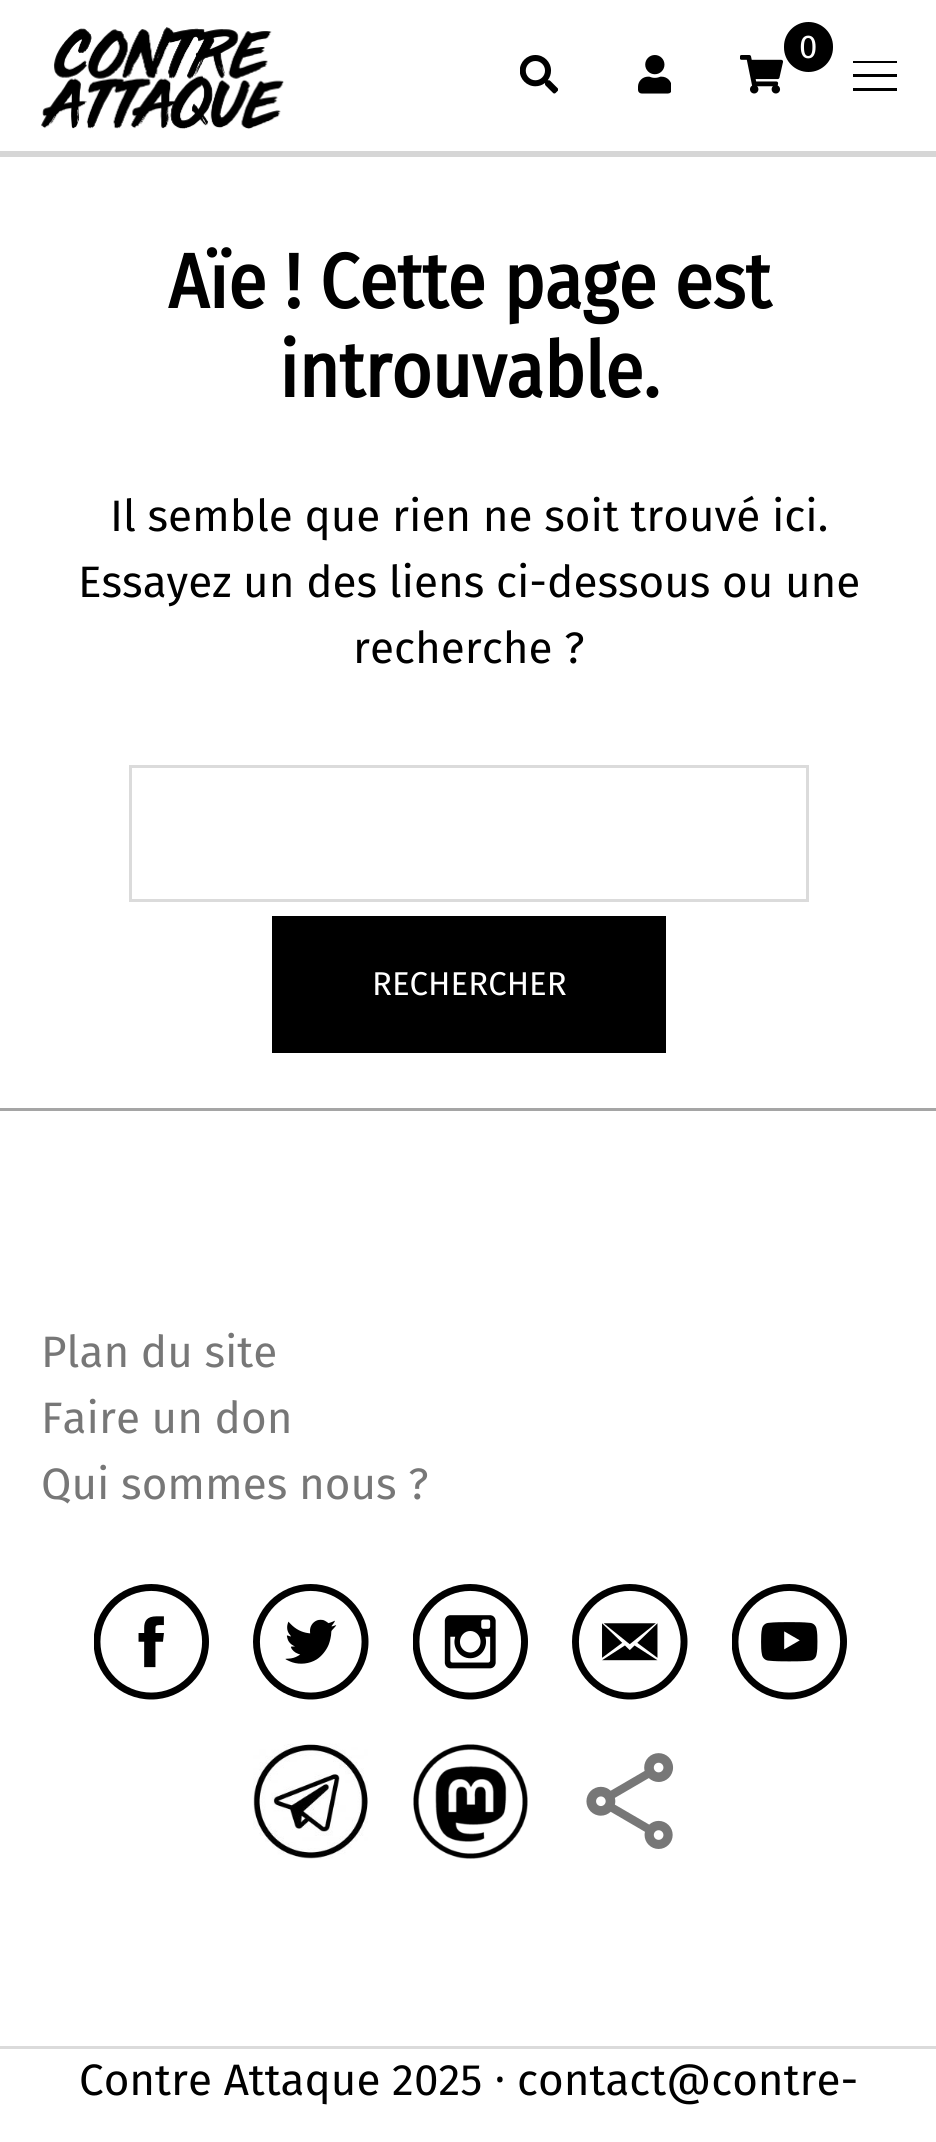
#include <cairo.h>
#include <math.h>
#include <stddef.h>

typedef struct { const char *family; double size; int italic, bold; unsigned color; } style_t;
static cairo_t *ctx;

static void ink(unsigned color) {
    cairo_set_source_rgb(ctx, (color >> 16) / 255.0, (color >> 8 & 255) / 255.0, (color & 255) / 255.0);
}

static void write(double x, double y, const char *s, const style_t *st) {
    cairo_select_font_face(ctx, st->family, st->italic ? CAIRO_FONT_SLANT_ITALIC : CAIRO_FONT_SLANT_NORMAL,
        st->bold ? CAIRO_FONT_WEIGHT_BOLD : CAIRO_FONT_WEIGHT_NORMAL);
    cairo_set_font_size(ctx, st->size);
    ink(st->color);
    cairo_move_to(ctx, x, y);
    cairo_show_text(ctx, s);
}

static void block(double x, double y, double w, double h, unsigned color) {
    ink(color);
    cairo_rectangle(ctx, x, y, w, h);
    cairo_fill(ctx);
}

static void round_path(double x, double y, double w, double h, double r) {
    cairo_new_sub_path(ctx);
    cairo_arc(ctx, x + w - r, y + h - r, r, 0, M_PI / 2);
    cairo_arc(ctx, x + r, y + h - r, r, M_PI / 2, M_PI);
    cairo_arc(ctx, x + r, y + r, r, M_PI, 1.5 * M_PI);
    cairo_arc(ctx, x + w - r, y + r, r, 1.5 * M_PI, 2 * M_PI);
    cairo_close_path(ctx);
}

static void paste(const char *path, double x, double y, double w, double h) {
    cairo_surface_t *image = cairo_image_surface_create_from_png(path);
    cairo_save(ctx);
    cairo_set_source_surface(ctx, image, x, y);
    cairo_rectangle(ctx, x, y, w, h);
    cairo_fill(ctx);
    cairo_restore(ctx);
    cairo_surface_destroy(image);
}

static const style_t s1 = {"Fira Sans", 33, 0, 0, 0xffffff};
static const style_t s2 = {"Fira Sans Condensed", 77, 0, 1, 0x000000};
static const style_t s3 = {"Fira Sans", 44, 0, 0, 0x000000};
static const style_t s4 = {"Fira Sans", 44, 0, 0, 0x777777};
static const style_t s5 = {"Noto Sans", 44, 0, 0, 0x000000};

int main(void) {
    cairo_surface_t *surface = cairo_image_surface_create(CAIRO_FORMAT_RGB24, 936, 2142);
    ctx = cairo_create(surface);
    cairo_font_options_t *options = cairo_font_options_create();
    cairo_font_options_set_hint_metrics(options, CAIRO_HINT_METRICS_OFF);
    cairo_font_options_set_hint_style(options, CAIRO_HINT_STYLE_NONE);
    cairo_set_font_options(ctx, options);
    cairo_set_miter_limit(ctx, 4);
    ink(0xffffff);
    cairo_paint(ctx);
    block(0, 151, 936, 6, 0xd6d6d6);
    paste("pic1.png", 41, 27, 243, 102);
    ink(0x000000);
    round_path(784, 22, 49, 50, 24.5);
    cairo_fill(ctx);
    write(799, 58, "0", &s1);
    paste("pic2.png", 740, 55, 43, 39);
    paste("pic3.png", 638, 55, 33, 39);
    paste("pic4.png", 520, 55, 38, 39);
    block(853, 61, 44, 2, 0x000000);
    block(853, 74, 44, 3, 0x000000);
    block(853, 88, 44, 3, 0x000000);
    write(168, 308, "Aïe ! Cette page est", &s2);
    write(279, 397, "introuvable.", &s2);
    write(110, 531, "Il semble que rien ne soit trouvé ici.", &s3);
    write(78, 597, "Essayez un des liens ci-dessous ou une", &s3);
    write(353, 663, "recherche ?", &s3);
    cairo_rectangle(ctx, 130.5, 766.5, 677, 134);
    ink(0xdbdbdb);
    cairo_set_line_width(ctx, 3);
    cairo_stroke(ctx);
    block(272, 916, 394, 137, 0x000000);
    write(372, 995, "RECHERCHER", &s1);
    block(0, 1108, 936, 3, 0xa5a5a5);
    write(41, 1367, "Plan du site", &s4);
    write(41, 1433, "Faire un don", &s4);
    write(41, 1499, "Qui sommes nous ?", &s4);
    paste("pic5.png", 94, 1584, 115, 116);
    paste("pic6.png", 253, 1584, 116, 116);
    paste("pic7.png", 413, 1584, 115, 116);
    paste("pic8.png", 572, 1584, 116, 116);
    paste("pic9.png", 732, 1584, 115, 116);
    paste("pic10.png", 253, 1743, 115, 116);
    paste("pic11.png", 413, 1744, 115, 115);
    paste("pic12.png", 586, 1753, 88, 96);
    block(0, 2046, 936, 3, 0xdbdbdb);
    write(79, 2095, "Contre Attaque 2025", &s3);
    write(494, 2095, "⸱", &s5);
    write(517, 2095, "contact@contre-", &s3);
    cairo_surface_write_to_png(surface, "screenshot.png");
    cairo_font_options_destroy(options);
    cairo_destroy(ctx);
    cairo_surface_destroy(surface);
    return 0;
}
